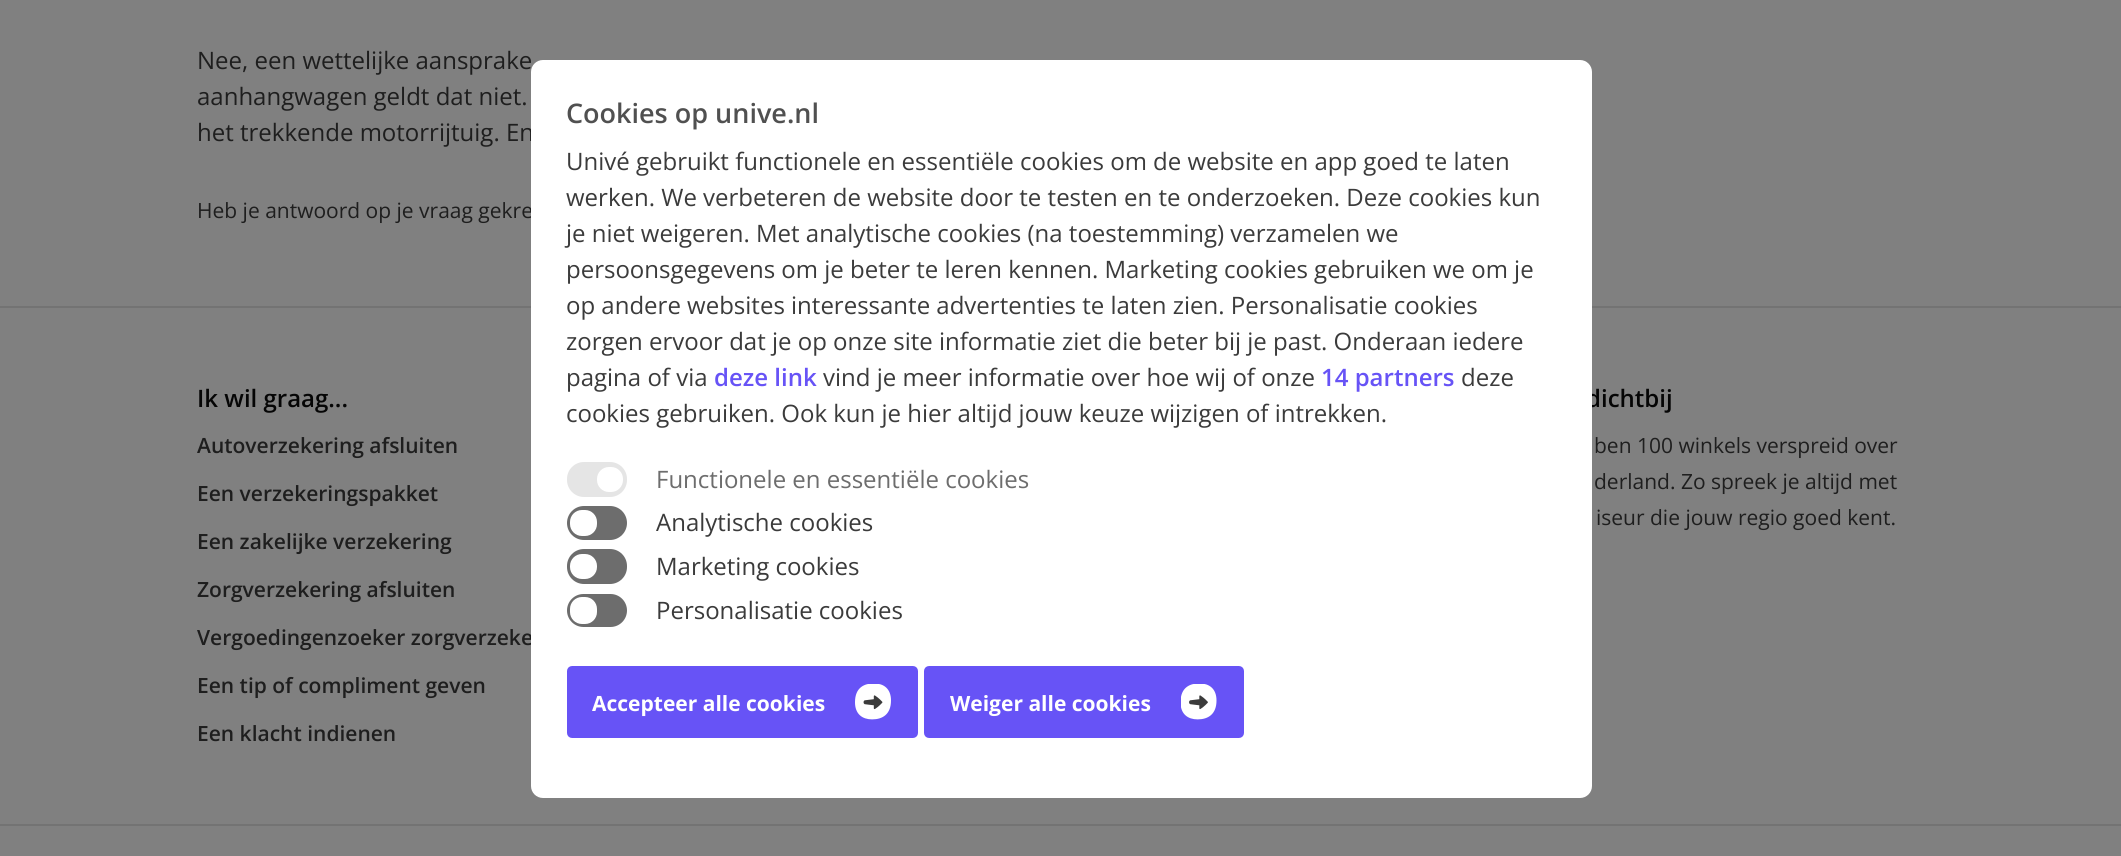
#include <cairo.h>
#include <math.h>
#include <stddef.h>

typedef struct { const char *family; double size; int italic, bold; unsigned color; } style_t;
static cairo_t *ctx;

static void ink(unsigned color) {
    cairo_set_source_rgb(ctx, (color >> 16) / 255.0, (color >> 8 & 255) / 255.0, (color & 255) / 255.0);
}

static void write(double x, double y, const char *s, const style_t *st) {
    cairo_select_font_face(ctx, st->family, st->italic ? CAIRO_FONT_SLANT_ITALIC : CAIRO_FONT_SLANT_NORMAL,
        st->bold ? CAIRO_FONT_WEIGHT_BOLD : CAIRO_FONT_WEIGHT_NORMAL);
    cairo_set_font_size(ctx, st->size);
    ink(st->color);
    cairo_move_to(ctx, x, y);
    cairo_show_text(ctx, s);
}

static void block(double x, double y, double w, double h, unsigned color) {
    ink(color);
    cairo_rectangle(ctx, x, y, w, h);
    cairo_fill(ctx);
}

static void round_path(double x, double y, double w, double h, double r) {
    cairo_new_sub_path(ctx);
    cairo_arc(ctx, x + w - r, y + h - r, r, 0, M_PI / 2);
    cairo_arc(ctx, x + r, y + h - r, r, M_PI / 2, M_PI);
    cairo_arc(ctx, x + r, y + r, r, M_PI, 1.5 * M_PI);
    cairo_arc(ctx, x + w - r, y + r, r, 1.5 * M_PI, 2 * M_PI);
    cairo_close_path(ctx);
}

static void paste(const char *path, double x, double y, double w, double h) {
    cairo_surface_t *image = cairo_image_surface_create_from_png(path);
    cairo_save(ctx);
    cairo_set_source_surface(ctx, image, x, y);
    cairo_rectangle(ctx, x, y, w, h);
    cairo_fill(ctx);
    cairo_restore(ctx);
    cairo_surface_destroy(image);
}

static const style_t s1 = {"Open Sans", 24, 0, 0, 0x1e1e1e};
static const style_t s2 = {"Open Sans", 21, 0, 0, 0x1e1e1e};
static const style_t s3 = {"Open Sans SemiBold", 24, 0, 0, 0x050505};
static const style_t s4 = {"Open Sans SemiBold", 21, 0, 0, 0x1e1e1e};
static const style_t s5 = {"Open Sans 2 SemiBold", 27, 0, 0, 0x505050};
static const style_t s6 = {"Open Sans 2", 24, 0, 0, 0x3b3b3b};
static const style_t s7 = {"Open Sans 2 SemiBold", 24, 0, 0, 0x6753f6};
static const style_t s8 = {"Open Sans 2", 24, 0, 0, 0x6d6d6d};
static const style_t s9 = {"Open Sans", 21, 0, 1, 0xffffff};

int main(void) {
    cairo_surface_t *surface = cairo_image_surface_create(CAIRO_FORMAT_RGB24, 2121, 856);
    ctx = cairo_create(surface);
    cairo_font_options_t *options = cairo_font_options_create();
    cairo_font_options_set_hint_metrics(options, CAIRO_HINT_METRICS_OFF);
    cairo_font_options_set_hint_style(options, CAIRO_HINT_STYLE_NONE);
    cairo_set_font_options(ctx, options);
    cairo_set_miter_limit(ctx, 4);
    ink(0x808080);
    cairo_paint(ctx);
    write(197, 69, "Nee, een wettelijke aansprake", &s1);
    write(197, 105, "aanhangwagen geldt dat niet.", &s1);
    write(197, 141, "het trekkende motorrijtuig. En", &s1);
    write(197, 218, "Heb je antwoord op je vraag gekre", &s2);
    block(0, 306, 2121, 2, 0x737373);
    write(197, 407, "Ik wil graag...", &s3);
    write(197, 453, "Autoverzekering afsluiten", &s4);
    write(197, 501, "Een verzekeringspakket", &s4);
    write(197, 549, "Een zakelijke verzekering", &s4);
    write(197, 597, "Zorgverzekering afsluiten", &s4);
    write(197, 645, "Vergoedingenzoeker zorgverzeke", &s4);
    write(197, 693, "Een tip of compliment geven", &s4);
    write(197, 741, "Een klacht indienen", &s4);
    write(1586, 407, "dichtbij", &s3);
    write(1594, 453, "ben 100 winkels verspreid over", &s2);
    write(1594, 489, "derland. Zo spreek je altijd met", &s2);
    write(1596, 525, "iseur die jouw regio goed kent.", &s2);
    block(0, 824, 2121, 2, 0x737373);
    ink(0xffffff);
    round_path(531, 60, 1061, 738, 12);
    cairo_fill(ctx);
    write(566, 123, "Cookies op unive.nl", &s5);
    write(566, 170, "Univé gebruikt functionele en essentiële cookies om de website en app goed te laten", &s6);
    write(566, 206, "werken. We verbeteren de website door te testen en te onderzoeken. Deze cookies kun", &s6);
    write(566, 242, "je niet weigeren. Met analytische cookies (na toestemming) verzamelen we", &s6);
    write(566, 278, "persoonsgegevens om je beter te leren kennen. Marketing cookies gebruiken we om je", &s6);
    write(566, 314, "op andere websites interessante advertenties te laten zien. Personalisatie cookies", &s6);
    write(566, 350, "zorgen ervoor dat je op onze site informatie ziet die beter bij je past. Onderaan iedere", &s6);
    write(566, 386, "pagina of via", &s6);
    write(714, 386, "deze link", &s7);
    write(823, 386, "vind je meer informatie over hoe wij of onze", &s6);
    write(1321, 386, "14 partners", &s7);
    write(1461, 386, "deze", &s6);
    write(566, 422, "cookies gebruiken. Ook kun je hier altijd jouw keuze wijzigen of intrekken.", &s6);
    ink(0xe5e5e5);
    round_path(567, 462, 60, 35, 17);
    cairo_fill(ctx);
    ink(0xffffff);
    round_path(597, 467, 26, 25, 12);
    cairo_fill(ctx);
    write(656, 488, "Functionele en essentiële cookies", &s8);
    round_path(567, 506, 60, 34, 17);
    cairo_fill(ctx);
    ink(0xffffff);
    round_path(570, 510, 27, 26, 12);
    cairo_fill(ctx);
    write(656, 531, "Analytische cookies", &s6);
    ink(0x6d6d6d);
    round_path(567, 549, 60, 35, 17);
    cairo_fill(ctx);
    ink(0xffffff);
    round_path(570, 554, 27, 25, 12);
    cairo_fill(ctx);
    write(656, 575, "Marketing cookies", &s6);
    ink(0x6d6d6d);
    round_path(567, 594, 60, 33, 16.5);
    cairo_fill(ctx);
    ink(0xffffff);
    round_path(570, 597, 27, 27, 12);
    cairo_fill(ctx);
    write(656, 619, "Personalisatie cookies", &s6);
    ink(0x6753f6);
    round_path(568.5, 667.5, 348, 69, 3.5);
    cairo_fill_preserve(ctx);
    cairo_set_line_width(ctx, 3);
    cairo_stroke(ctx);
    write(592, 711, "Accepteer alle cookies", &s9);
    paste("pic1.png", 855, 684, 36, 36);
    ink(0x6753f6);
    round_path(925.5, 667.5, 317, 69, 3.5);
    cairo_fill_preserve(ctx);
    cairo_stroke(ctx);
    write(950, 711, "Weiger alle cookies", &s9);
    paste("pic2.png", 1181, 684, 36, 36);
    cairo_surface_write_to_png(surface, "screenshot.png");
    cairo_font_options_destroy(options);
    cairo_destroy(ctx);
    cairo_surface_destroy(surface);
    return 0;
}
